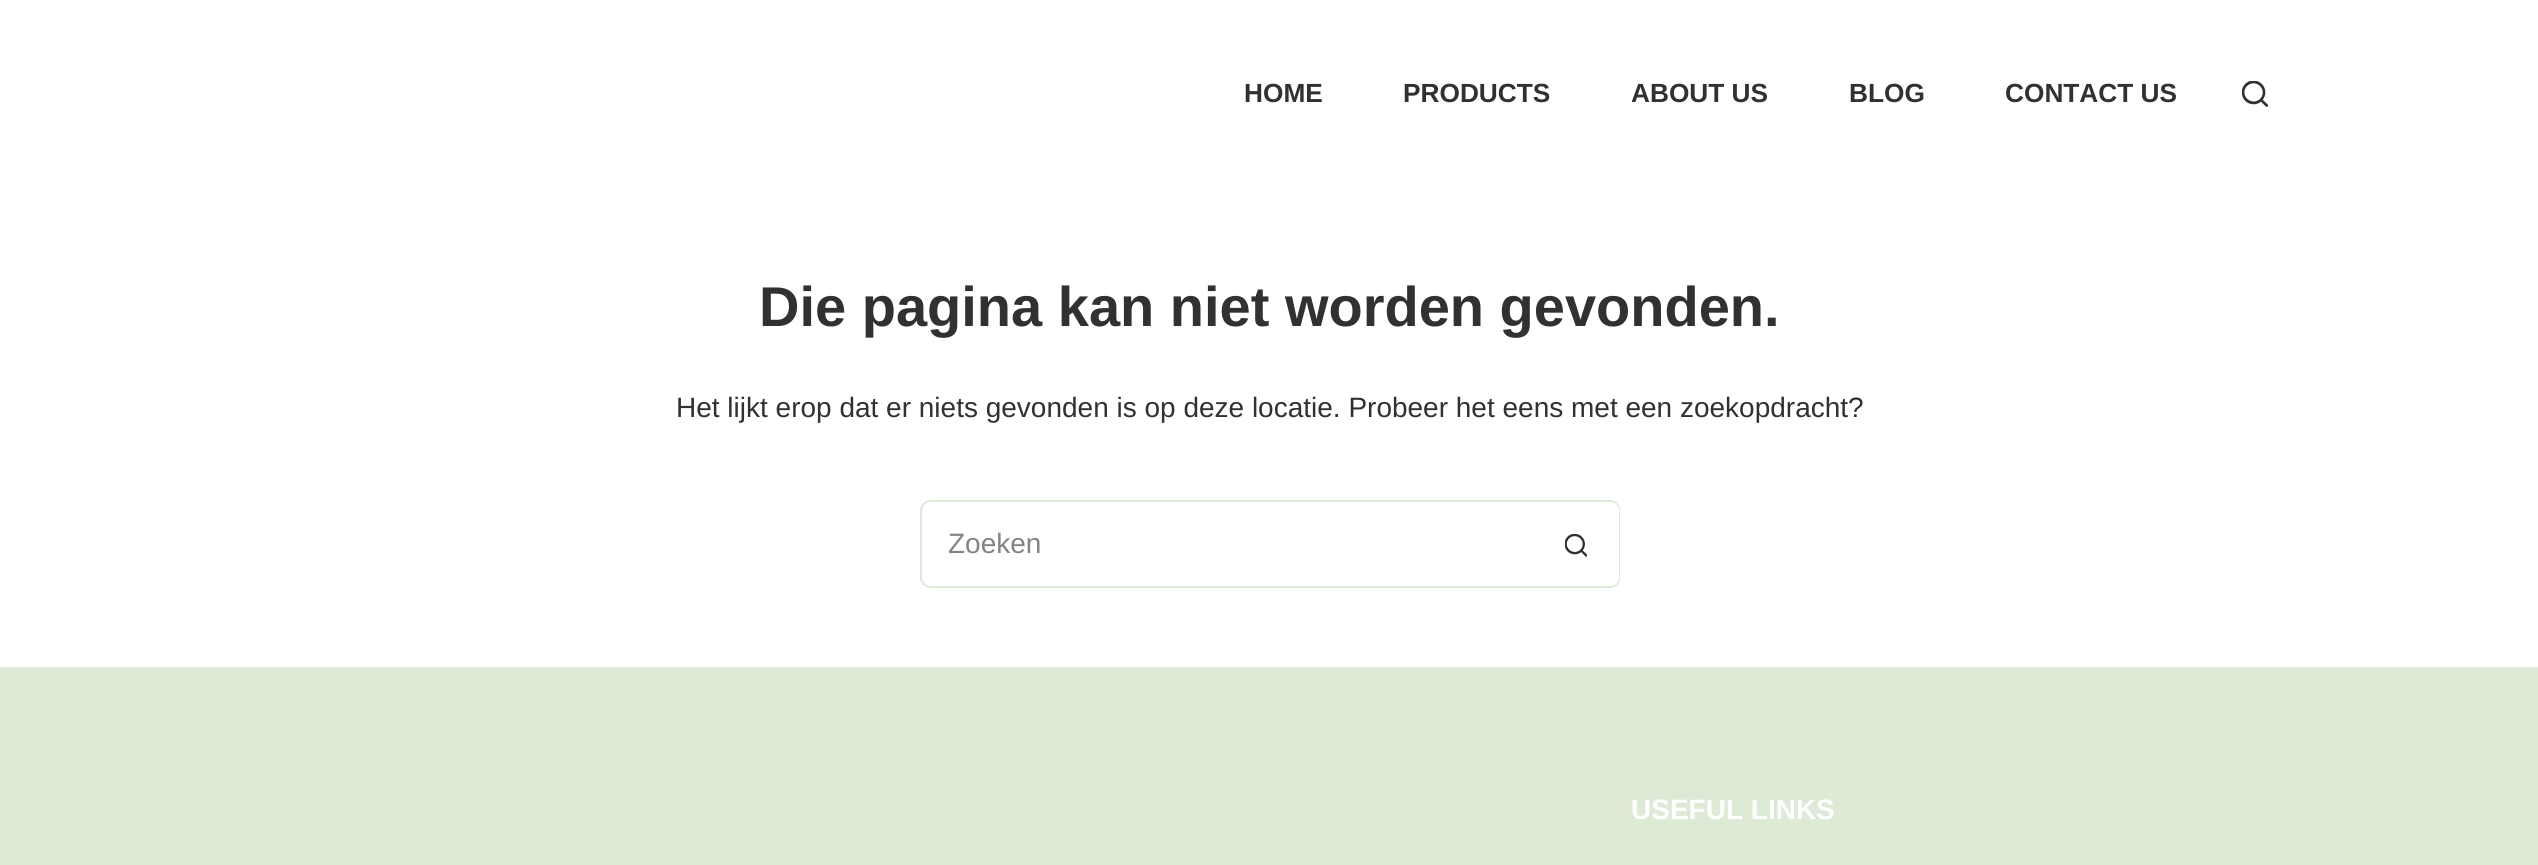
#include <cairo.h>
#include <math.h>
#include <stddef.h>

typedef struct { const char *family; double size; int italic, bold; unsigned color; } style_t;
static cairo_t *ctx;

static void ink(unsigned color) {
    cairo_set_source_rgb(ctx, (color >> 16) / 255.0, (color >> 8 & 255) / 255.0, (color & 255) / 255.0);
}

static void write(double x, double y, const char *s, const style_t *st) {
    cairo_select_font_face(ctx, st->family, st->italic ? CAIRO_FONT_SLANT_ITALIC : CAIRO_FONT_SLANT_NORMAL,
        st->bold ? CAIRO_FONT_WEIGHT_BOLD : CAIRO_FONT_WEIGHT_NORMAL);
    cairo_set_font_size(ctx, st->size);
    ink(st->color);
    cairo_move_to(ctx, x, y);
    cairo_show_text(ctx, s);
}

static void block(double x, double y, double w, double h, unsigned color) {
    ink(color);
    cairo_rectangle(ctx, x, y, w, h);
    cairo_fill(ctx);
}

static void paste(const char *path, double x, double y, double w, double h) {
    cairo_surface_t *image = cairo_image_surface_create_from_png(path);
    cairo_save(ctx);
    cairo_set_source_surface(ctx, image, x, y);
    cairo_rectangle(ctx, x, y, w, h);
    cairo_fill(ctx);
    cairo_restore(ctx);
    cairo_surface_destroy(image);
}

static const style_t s1 = {"Liberation Sans", 26.25, 0, 1, 0x323131};
static const style_t s2 = {"Liberation Sans", 56, 0, 1, 0x323131};
static const style_t s3 = {"Liberation Sans", 28, 0, 0, 0x323131};
static const style_t s4 = {"Liberation Sans", 28, 0, 0, 0x848383};
static const style_t s5 = {"Liberation Sans", 28, 0, 1, 0xffffff};

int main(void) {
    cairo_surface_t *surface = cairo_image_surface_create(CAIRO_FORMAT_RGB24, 2538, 865);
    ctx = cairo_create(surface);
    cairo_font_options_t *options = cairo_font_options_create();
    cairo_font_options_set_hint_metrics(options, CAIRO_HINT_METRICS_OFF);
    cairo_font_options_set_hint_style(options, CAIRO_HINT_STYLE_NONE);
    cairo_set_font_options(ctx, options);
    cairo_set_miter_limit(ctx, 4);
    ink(0xffffff);
    cairo_paint(ctx);
    write(1244, 102, "HOME", &s1);
    write(1403, 102, "PRODUCTS", &s1);
    write(1631, 102, "ABOUT US", &s1);
    write(1849, 102, "BLOG", &s1);
    write(2005, 102, "CONTACT US", &s1);
    paste("pic1.png", 2242, 81, 26, 26);
    write(759, 326, "Die pagina kan niet worden gevonden.", &s2);
    write(676, 417, "Het lijkt erop dat er niets gevonden is op deze locatie. Probeer het eens met een zoekopdracht?", &s3);
    ink(0xddead6);
    cairo_set_fill_rule(ctx, CAIRO_FILL_RULE_EVEN_ODD);
    cairo_new_path(ctx);
    cairo_move_to(ctx, 931, 500);
    cairo_line_to(ctx, 1533, 500);
    cairo_line_to(ctx, 1533, 588);
    cairo_line_to(ctx, 931, 588);
    cairo_curve_to(ctx, 925, 588, 920, 583, 920, 578);
    cairo_line_to(ctx, 920, 511);
    cairo_curve_to(ctx, 920, 505, 925, 500, 931, 500);
    cairo_close_path(ctx);
    cairo_move_to(ctx, 931, 502);
    cairo_line_to(ctx, 1533, 502);
    cairo_line_to(ctx, 1533, 586);
    cairo_line_to(ctx, 931, 586);
    cairo_curve_to(ctx, 926, 586, 922, 582, 922, 578);
    cairo_line_to(ctx, 922, 511);
    cairo_curve_to(ctx, 922, 506, 926, 502, 931, 502);
    cairo_close_path(ctx);
    cairo_fill(ctx);
    cairo_save(ctx);
    cairo_set_fill_rule(ctx, CAIRO_FILL_RULE_WINDING);
    cairo_rectangle(ctx, 949, 529, 551, 31);
    cairo_clip(ctx);
    write(948, 553, "Zoeken", &s4);
    cairo_restore(ctx);
    cairo_new_path(ctx);
    cairo_move_to(ctx, 1533, 500);
    cairo_line_to(ctx, 1610, 500);
    cairo_curve_to(ctx, 1616, 500, 1620, 505, 1620, 511);
    cairo_line_to(ctx, 1620, 578);
    cairo_curve_to(ctx, 1620, 583, 1616, 588, 1610, 588);
    cairo_line_to(ctx, 1533, 588);
    cairo_close_path(ctx);
    cairo_move_to(ctx, 1533, 502);
    cairo_line_to(ctx, 1610, 502);
    cairo_curve_to(ctx, 1615, 502, 1619, 506, 1619, 511);
    cairo_line_to(ctx, 1619, 578);
    cairo_curve_to(ctx, 1619, 582, 1615, 586, 1610, 586);
    cairo_line_to(ctx, 1533, 586);
    cairo_close_path(ctx);
    cairo_fill(ctx);
    paste("pic2.png", 1565, 534, 22, 23);
    block(0, 667, 2538, 198, 0xddead6);
    write(1631, 819, "USEFUL LINKS", &s5);
    cairo_surface_write_to_png(surface, "screenshot.png");
    cairo_font_options_destroy(options);
    cairo_destroy(ctx);
    cairo_surface_destroy(surface);
    return 0;
}
